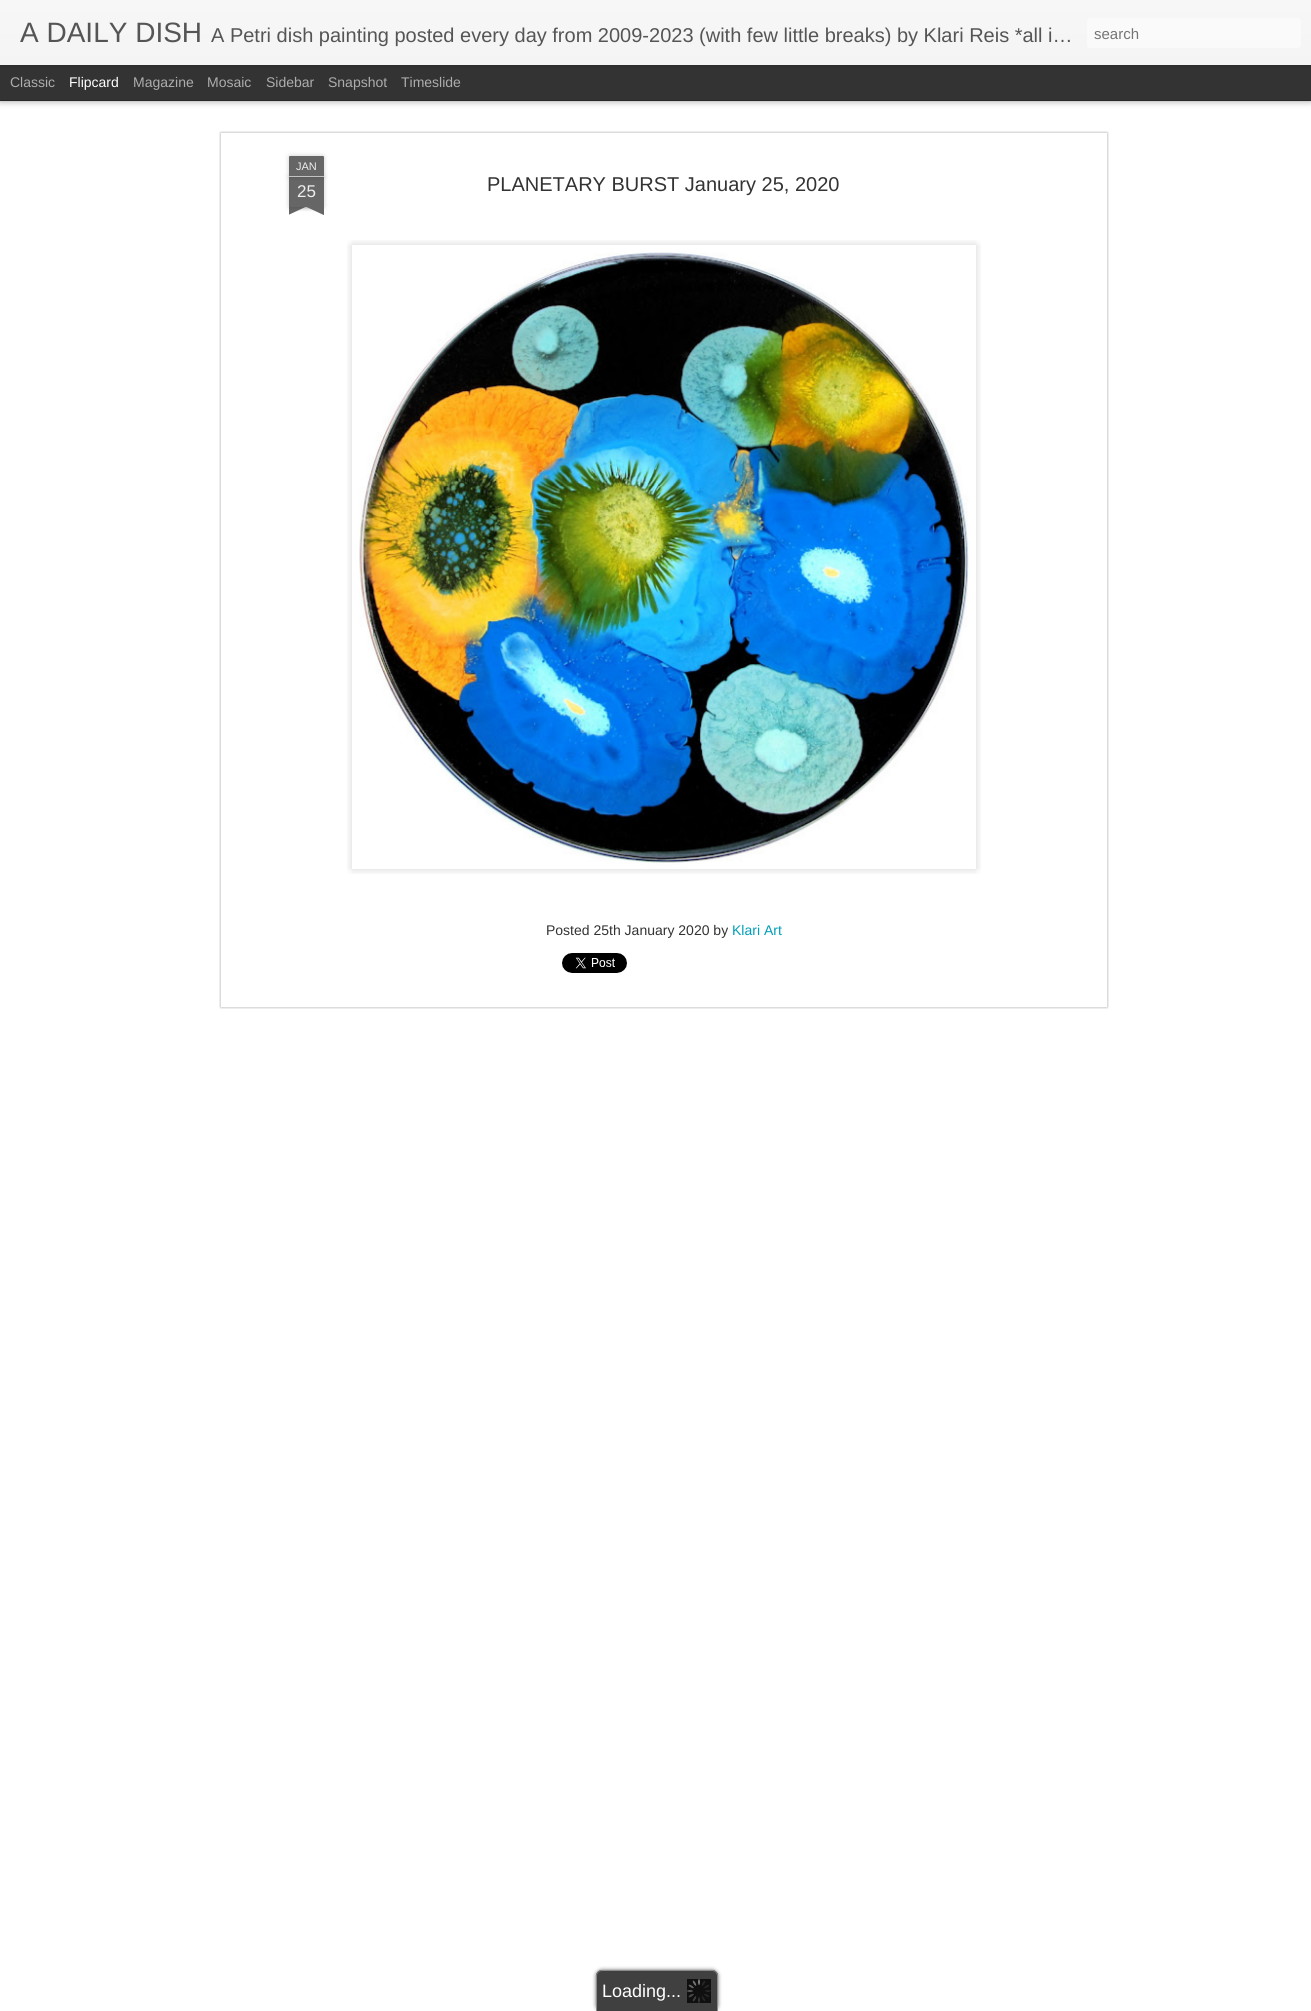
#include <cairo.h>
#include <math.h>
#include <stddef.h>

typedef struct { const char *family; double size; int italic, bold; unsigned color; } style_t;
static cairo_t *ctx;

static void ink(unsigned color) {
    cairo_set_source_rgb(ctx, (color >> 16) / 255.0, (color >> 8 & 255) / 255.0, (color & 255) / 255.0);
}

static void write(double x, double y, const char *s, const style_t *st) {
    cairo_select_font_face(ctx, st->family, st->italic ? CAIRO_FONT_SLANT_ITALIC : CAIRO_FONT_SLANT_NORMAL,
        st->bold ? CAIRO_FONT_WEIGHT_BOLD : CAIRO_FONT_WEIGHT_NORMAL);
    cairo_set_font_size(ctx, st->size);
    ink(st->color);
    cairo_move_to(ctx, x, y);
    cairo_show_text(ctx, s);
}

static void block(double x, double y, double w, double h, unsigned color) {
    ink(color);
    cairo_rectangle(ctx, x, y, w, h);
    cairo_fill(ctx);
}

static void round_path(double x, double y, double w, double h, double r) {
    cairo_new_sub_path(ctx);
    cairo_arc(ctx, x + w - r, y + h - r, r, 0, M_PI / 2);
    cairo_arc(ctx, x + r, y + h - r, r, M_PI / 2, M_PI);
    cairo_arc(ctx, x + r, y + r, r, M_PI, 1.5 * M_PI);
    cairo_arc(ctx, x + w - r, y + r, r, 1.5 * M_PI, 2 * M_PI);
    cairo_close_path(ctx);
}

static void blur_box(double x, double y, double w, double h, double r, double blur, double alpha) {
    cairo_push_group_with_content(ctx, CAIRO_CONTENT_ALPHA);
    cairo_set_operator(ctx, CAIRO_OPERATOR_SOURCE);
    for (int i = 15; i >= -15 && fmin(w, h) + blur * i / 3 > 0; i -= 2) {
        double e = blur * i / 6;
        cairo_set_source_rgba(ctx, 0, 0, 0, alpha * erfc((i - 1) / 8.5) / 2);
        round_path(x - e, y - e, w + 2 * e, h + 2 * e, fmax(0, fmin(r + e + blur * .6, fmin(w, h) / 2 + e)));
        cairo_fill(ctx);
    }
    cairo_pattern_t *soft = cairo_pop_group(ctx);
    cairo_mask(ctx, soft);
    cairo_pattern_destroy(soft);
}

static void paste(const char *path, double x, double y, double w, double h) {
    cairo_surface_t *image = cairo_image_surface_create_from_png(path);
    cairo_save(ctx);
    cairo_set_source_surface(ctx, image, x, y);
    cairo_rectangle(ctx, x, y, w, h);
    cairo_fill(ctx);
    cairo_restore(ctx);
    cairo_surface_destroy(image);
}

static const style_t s1 = {"Liberation Sans", 28, 0, 0, 0x555555};
static const style_t s2 = {"Liberation Sans", 20, 0, 0, 0x555555};
static const style_t s3 = {"Liberation Sans", 15, 0, 0, 0x757575};
static const style_t s4 = {"Liberation Sans", 14, 0, 0, 0xadadad};
static const style_t s5 = {"Liberation Sans", 14, 0, 0, 0xffffff};
static const style_t s6 = {"Liberation Sans", 11, 0, 0, 0xeeeeee};
static const style_t s7 = {"Liberation Sans", 17, 0, 0, 0xeeeeee};
static const style_t s8 = {"Liberation Sans", 20, 0, 0, 0x333333};
static const style_t s9 = {"Liberation Sans", 14, 0, 0, 0x333333};
static const style_t s10 = {"Liberation Sans", 14, 0, 0, 0x009eb8};
static const style_t s11 = {"Liberation Sans", 18, 0, 0, 0xffffff};

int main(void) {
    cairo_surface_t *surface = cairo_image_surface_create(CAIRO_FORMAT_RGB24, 1311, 2011);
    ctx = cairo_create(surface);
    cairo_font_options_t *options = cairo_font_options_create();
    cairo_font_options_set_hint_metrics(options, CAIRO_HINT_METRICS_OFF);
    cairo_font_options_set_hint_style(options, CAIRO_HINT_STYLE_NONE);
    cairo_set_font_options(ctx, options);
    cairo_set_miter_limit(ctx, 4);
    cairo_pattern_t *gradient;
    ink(0x333333);
    cairo_paint(ctx);
    block(0, 101, 1311, 1910, 0xffffff);
    ink(0x000000);
    blur_box(0, 65, 1311, 35, 0, 4, 0.5);
    block(0, 65, 1311, 35, 0x333333);
    ink(0x000000);
    blur_box(0, 0, 1311, 65, 0, 2.5, 0.3);
    gradient = cairo_pattern_create_linear(0, 0, 0, 65);
    cairo_pattern_add_color_stop_rgba(gradient, 0, 0.969, 0.969, 0.969, 1);
    cairo_pattern_add_color_stop_rgba(gradient, 1, 0.957, 0.957, 0.957, 1);
    cairo_set_source(ctx, gradient);
    cairo_pattern_destroy(gradient);
    cairo_rectangle(ctx, 0, 0, 1311, 65);
    cairo_fill(ctx);
    write(20, 42, "A DAILY DISH", &s1);
    write(211, 42, "A Petri dish painting posted every day from 2009-2023 (with few little breaks) by Klari Reis *all i…", &s2);
    ink(0xfafafa);
    round_path(1087, 18, 214, 30, 3);
    cairo_fill(ctx);
    write(1094, 39, "search", &s3);
    write(10, 87, "Classic", &s4);
    write(69, 87, "Flipcard", &s5);
    write(133, 87, "Magazine", &s4);
    write(207, 87, "Mosaic", &s4);
    write(266, 87, "Sidebar", &s4);
    write(328, 87, "Snapshot", &s4);
    write(401, 87, "Timeslide", &s4);
    paste("pic1.png", 219, 131, 890, 878);
    ink(0x000000);
    blur_box(289, 177, 35, 30, 0, 2.5, 0.2);
    block(289, 177, 35, 30, 0x666666);
    ink(0x000000);
    blur_box(289, 156, 35, 21, 1, 2.5, 0.2);
    ink(0x666666);
    cairo_new_path(ctx);
    cairo_move_to(ctx, 290, 156);
    cairo_line_to(ctx, 323, 156);
    cairo_curve_to(ctx, 323.5, 156, 324, 156.5, 324, 157);
    cairo_line_to(ctx, 324, 177);
    cairo_line_to(ctx, 289, 177);
    cairo_line_to(ctx, 289, 157);
    cairo_curve_to(ctx, 289, 156.5, 289.5, 156, 290, 156);
    cairo_close_path(ctx);
    cairo_fill(ctx);
    block(289, 176, 35, 1, 0xc2c2c2);
    write(296, 170, "JAN", &s6);
    write(297, 197, "25", &s7);
    cairo_save(ctx);
    cairo_rectangle(ctx, 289, 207, 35, 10);
    cairo_clip(ctx);
    ink(0x000000);
    blur_box(280, 197, 50, 10, 0, 2.5, 0.2);
    cairo_restore(ctx);
    cairo_save(ctx);
    cairo_rectangle(ctx, 289, 207, 35, 10);
    cairo_clip(ctx);
    ink(0x666666);
    cairo_new_path(ctx);
    cairo_move_to(ctx, 280, 208);
    cairo_line_to(ctx, 325, 187);
    cairo_line_to(ctx, 329, 196);
    cairo_line_to(ctx, 284, 217);
    cairo_close_path(ctx);
    cairo_fill(ctx);
    cairo_restore(ctx);
    cairo_save(ctx);
    cairo_rectangle(ctx, 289, 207, 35, 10);
    cairo_clip(ctx);
    ink(0x000000);
    blur_box(283, 197, 50, 10, 0, 2.5, 0.2);
    cairo_restore(ctx);
    cairo_save(ctx);
    cairo_rectangle(ctx, 289, 207, 35, 10);
    cairo_clip(ctx);
    ink(0x666666);
    cairo_new_path(ctx);
    cairo_move_to(ctx, 287, 187);
    cairo_line_to(ctx, 332, 208);
    cairo_line_to(ctx, 328, 217);
    cairo_line_to(ctx, 283, 196);
    cairo_close_path(ctx);
    cairo_fill(ctx);
    cairo_restore(ctx);
    write(487, 191, "PLANETARY BURST January 25, 2020", &s8);
    paste("pic2.png", 347, 240, 634, 634);
    paste("pic3.png", 359, 252, 609, 611);
    write(546, 935, "Posted 25th January 2020 by", &s9);
    write(732, 935, "Klari Art", &s10);
    paste("pic4.png", 562, 953, 65, 20);
    ink(0x666666);
    blur_box(596, 1970, 122, 41, 6, 2, 1);
    ink(0x404040);
    cairo_new_path(ctx);
    cairo_move_to(ctx, 602, 1970);
    cairo_line_to(ctx, 712, 1970);
    cairo_curve_to(ctx, 715.5, 1970, 718, 1972.5, 718, 1976);
    cairo_line_to(ctx, 718, 2011);
    cairo_line_to(ctx, 596, 2011);
    cairo_line_to(ctx, 596, 1976);
    cairo_curve_to(ctx, 596, 1972.5, 598.5, 1970, 602, 1970);
    cairo_close_path(ctx);
    cairo_fill(ctx);
    ink(0x8c8c8c);
    cairo_set_fill_rule(ctx, CAIRO_FILL_RULE_EVEN_ODD);
    cairo_new_path(ctx);
    cairo_move_to(ctx, 602, 1970);
    cairo_line_to(ctx, 712, 1970);
    cairo_curve_to(ctx, 715, 1970, 718, 1973, 718, 1976);
    cairo_line_to(ctx, 718, 2011);
    cairo_line_to(ctx, 596, 2011);
    cairo_line_to(ctx, 596, 1976);
    cairo_curve_to(ctx, 596, 1973, 599, 1970, 602, 1970);
    cairo_close_path(ctx);
    cairo_move_to(ctx, 602, 1971);
    cairo_line_to(ctx, 712, 1971);
    cairo_curve_to(ctx, 715, 1971, 717, 1973, 717, 1976);
    cairo_line_to(ctx, 717, 2011);
    cairo_line_to(ctx, 597, 2011);
    cairo_line_to(ctx, 597, 1976);
    cairo_curve_to(ctx, 597, 1973, 599, 1971, 602, 1971);
    cairo_close_path(ctx);
    cairo_fill(ctx);
    paste("pic5.png", 687, 1979, 24, 24);
    write(602, 1997, "Loading...", &s11);
    cairo_surface_write_to_png(surface, "screenshot.png");
    cairo_font_options_destroy(options);
    cairo_destroy(ctx);
    cairo_surface_destroy(surface);
    return 0;
}
